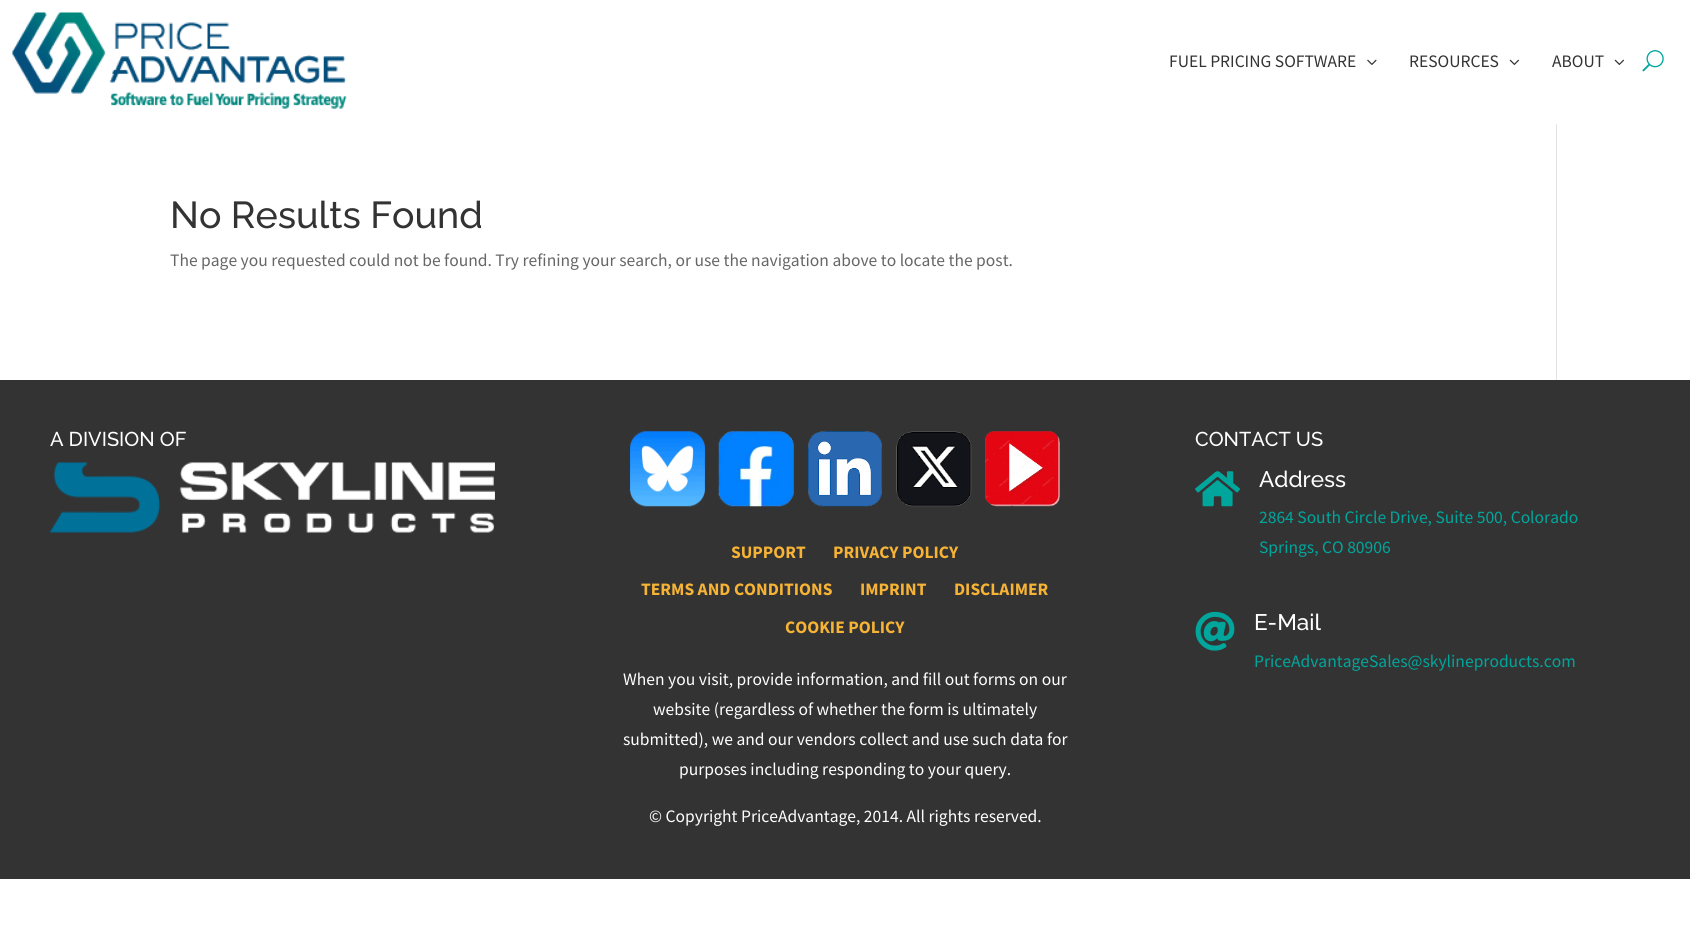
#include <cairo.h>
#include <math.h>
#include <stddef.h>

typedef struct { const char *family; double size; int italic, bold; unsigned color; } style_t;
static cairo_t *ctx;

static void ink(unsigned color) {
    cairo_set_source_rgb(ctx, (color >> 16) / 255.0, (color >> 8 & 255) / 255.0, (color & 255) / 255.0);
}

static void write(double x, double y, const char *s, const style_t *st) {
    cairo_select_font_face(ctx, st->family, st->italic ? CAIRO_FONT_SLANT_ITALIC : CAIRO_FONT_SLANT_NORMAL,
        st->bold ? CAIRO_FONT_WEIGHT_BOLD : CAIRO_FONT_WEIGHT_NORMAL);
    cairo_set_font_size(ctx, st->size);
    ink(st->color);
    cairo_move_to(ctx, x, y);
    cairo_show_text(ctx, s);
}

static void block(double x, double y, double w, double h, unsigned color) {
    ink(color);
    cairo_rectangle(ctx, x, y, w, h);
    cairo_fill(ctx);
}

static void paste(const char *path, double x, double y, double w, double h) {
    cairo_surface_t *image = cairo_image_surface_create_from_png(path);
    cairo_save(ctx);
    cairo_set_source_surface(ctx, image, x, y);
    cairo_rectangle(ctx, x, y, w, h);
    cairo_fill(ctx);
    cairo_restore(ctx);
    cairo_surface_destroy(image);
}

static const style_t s1 = {"Source Sans Pro", 17.5, 0, 0, 0x333333};
static const style_t s2 = {"Raleway Medium", 37.5, 0, 0, 0x333333};
static const style_t s3 = {"Source Sans Pro", 17.5, 0, 0, 0x666666};
static const style_t s4 = {"Raleway Medium", 20, 0, 0, 0xffffff};
static const style_t s5 = {"Source Sans Pro", 17.5, 0, 1, 0xf6b335};
static const style_t s6 = {"Source Sans Pro", 17.5, 0, 0, 0xffffff};
static const style_t s7 = {"Raleway Medium", 22.5, 0, 0, 0xffffff};
static const style_t s8 = {"Source Sans Pro", 17.5, 0, 0, 0x00a69c};

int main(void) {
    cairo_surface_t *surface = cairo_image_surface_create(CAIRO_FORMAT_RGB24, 1690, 931);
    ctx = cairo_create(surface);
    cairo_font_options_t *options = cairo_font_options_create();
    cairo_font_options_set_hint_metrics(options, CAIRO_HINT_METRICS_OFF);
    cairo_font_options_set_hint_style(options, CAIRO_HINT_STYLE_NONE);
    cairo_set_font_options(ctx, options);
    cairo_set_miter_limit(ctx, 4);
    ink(0xffffff);
    cairo_paint(ctx);
    paste("pic1.png", 12, 12, 335, 97);
    write(1169, 67, "FUEL PRICING SOFTWARE", &s1);
    paste("pic2.png", 1367, 59, 10, 6);
    write(1409, 67, "RESOURCES", &s1);
    paste("pic3.png", 1509, 59, 10, 6);
    write(1552, 67, "ABOUT", &s1);
    paste("pic3.png", 1614, 59, 10, 6);
    paste("pic4.png", 1642, 50, 22, 22);
    write(170, 228, "No Results Found", &s2);
    write(170, 266, "The page you requested could not be found. Try refining your search, or use the navigation above to locate the post.", &s3);
    block(1556, 124, 1, 256, 0xe2e2e2);
    block(0, 380, 1690, 499, 0x333333);
    write(50, 446, "A DIVISION OF", &s4);
    paste("pic5.png", 50, 462, 445, 71);
    paste("pic6.png", 630, 431, 75, 76);
    paste("pic7.png", 718, 431, 76, 76);
    paste("pic8.png", 808, 431, 74, 76);
    paste("pic9.png", 896, 431, 76, 76);
    paste("pic10.png", 985, 431, 75, 76);
    write(731, 558, "SUPPORT", &s5);
    write(833, 558, "PRIVACY POLICY", &s5);
    write(641, 595, "TERMS AND CONDITIONS", &s5);
    write(860, 595, "IMPRINT", &s5);
    write(954, 595, "DISCLAIMER", &s5);
    write(785, 633, "COOKIE POLICY", &s5);
    write(623, 685, "When you visit, provide information, and fill out forms on our", &s6);
    write(653, 715, "website (regardless of whether the form is ultimately", &s6);
    write(623, 745, "submitted), we and our vendors collect and use such data for", &s6);
    write(679, 775, "purposes including responding to your query.", &s6);
    write(649, 822, "© Copyright PriceAdvantage, 2014. All rights reserved.", &s6);
    write(1195, 446, "CONTACT US", &s4);
    paste("pic11.png", 1195, 471, 45, 36);
    write(1259, 487, "Address", &s7);
    write(1259, 523, "2864 South Circle Drive, Suite 500, Colorado", &s8);
    write(1259, 553, "Springs, CO 80906", &s8);
    paste("pic12.png", 1195, 611, 40, 40);
    write(1254, 630, "E-Mail", &s7);
    write(1254, 667, "PriceAdvantageSales@skylineproducts.com", &s8);
    cairo_surface_write_to_png(surface, "screenshot.png");
    cairo_font_options_destroy(options);
    cairo_destroy(ctx);
    cairo_surface_destroy(surface);
    return 0;
}
